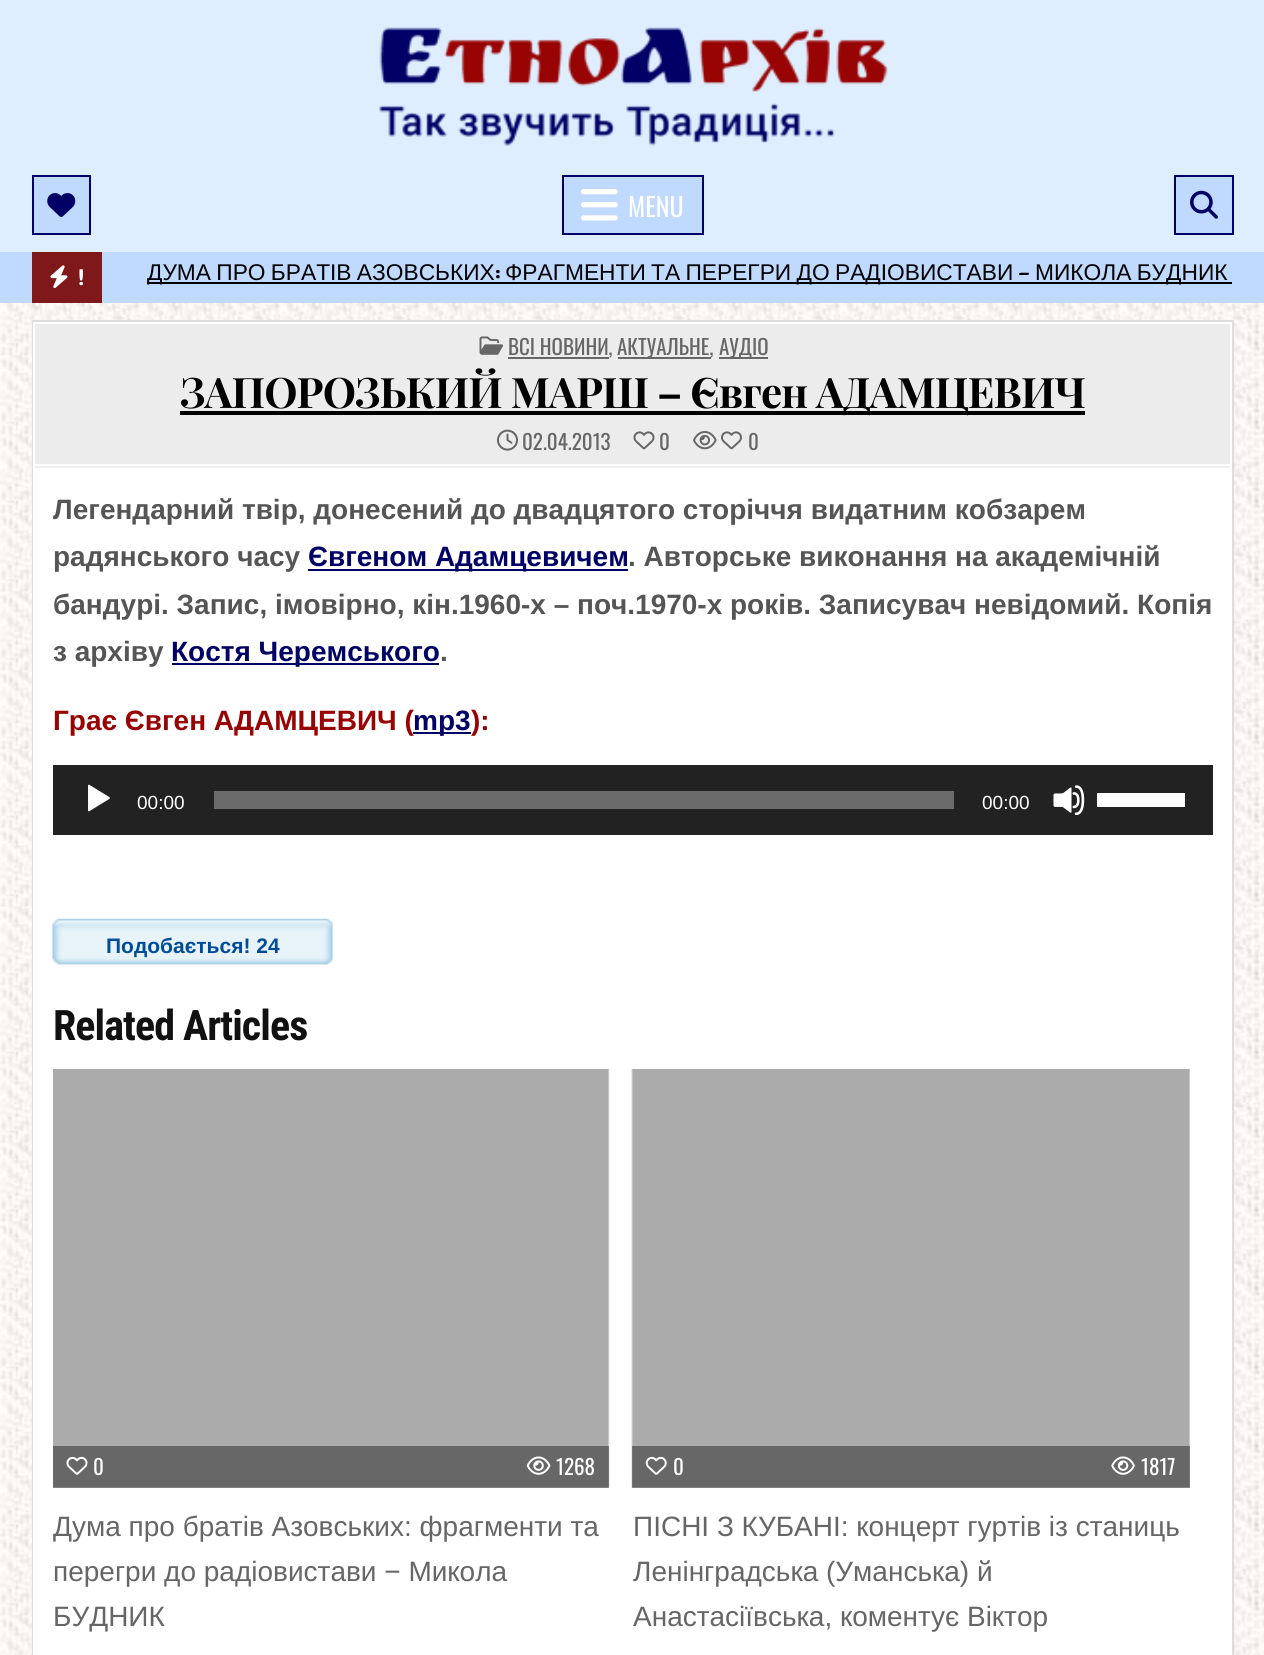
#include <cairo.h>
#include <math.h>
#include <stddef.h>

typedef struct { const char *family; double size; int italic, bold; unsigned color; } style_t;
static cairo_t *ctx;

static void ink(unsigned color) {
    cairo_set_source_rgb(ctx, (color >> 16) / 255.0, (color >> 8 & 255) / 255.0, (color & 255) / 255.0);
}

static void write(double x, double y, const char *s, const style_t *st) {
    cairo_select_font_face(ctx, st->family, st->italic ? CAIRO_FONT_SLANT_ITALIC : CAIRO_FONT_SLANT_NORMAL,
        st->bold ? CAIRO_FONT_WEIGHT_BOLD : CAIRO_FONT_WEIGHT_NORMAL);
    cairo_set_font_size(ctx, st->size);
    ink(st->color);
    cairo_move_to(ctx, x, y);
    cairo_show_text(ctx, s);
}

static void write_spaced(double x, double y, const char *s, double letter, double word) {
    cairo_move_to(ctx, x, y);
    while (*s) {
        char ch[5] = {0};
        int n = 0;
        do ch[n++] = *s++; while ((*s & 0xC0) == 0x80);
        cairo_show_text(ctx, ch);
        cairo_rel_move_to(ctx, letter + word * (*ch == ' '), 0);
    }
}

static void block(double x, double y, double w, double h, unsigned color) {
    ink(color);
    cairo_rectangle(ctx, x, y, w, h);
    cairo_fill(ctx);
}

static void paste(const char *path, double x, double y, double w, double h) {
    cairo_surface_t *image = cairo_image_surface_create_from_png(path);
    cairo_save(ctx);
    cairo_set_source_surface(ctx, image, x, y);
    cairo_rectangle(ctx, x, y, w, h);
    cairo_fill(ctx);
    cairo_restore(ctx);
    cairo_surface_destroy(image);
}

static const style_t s1 = {"Oswald", 26, 0, 0, 0xffffff};
static const style_t s2 = {"Patua One", 22.75, 0, 0, 0xffffff};
static const style_t s3 = {"Patua One", 22.75, 0, 0, 0x000000};
static const style_t s4 = {"Oswald", 21, 0, 0, 0x666666};
static const style_t s5 = {"Liberation Sans", 28, 0, 1, 0x555555};
static const style_t s6 = {"Liberation Sans", 28, 0, 1, 0x000066};
static const style_t s7 = {"Liberation Sans", 28, 0, 1, 0x980404};
static const style_t s8 = {"Liberation Sans", 19, 0, 0, 0xffffff};
static const style_t s9 = {"Liberation Sans", 21, 0, 1, 0x004c99};
static const style_t s10 = {"Oswald", 21, 0, 0, 0xffffff};
static const style_t s11 = {"Liberation Sans", 28, 0, 0, 0x666666};

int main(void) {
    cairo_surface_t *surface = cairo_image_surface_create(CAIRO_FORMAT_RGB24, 1264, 1655);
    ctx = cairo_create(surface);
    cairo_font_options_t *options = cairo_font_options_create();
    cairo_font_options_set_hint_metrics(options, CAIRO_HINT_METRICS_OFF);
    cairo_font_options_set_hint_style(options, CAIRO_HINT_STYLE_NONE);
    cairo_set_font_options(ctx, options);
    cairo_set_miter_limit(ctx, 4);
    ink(0xffffff);
    cairo_paint(ctx);
    paste("pic1.png", 0, 303, 1264, 1352);
    block(0, 0, 1264, 252, 0xdeeeff);
    paste("pic2.png", 379, 27, 509, 119);
    ink(0xbfd9ff);
    cairo_rectangle(ctx, 33, 176, 57, 58);
    cairo_fill_preserve(ctx);
    ink(0x000066);
    cairo_stroke(ctx);
    paste("pic3.png", 47, 193, 29, 24);
    ink(0xbfd9ff);
    cairo_rectangle(ctx, 563, 176, 140, 58);
    cairo_fill_preserve(ctx);
    ink(0x000066);
    cairo_stroke(ctx);
    paste("pic4.png", 581, 189, 37, 32);
    write(628, 217, "MENU", &s1);
    ink(0xbfd9ff);
    cairo_rectangle(ctx, 1175, 176, 58, 58);
    cairo_fill_preserve(ctx);
    ink(0x000066);
    cairo_stroke(ctx);
    paste("pic5.png", 1190, 190, 28, 29);
    block(0, 252, 1264, 51, 0xbfd9ff);
    block(32, 252, 70, 51, 0x7f181b);
    paste("pic6.png", 50, 265, 18, 24);
    write(78, 285, "!", &s2);
    block(147, 282, 1080, 2, 0x000000);
    cairo_select_font_face(ctx, "Liberation Sans", CAIRO_FONT_SLANT_NORMAL, CAIRO_FONT_WEIGHT_NORMAL);
    write_spaced(147, 280, "ДУМА ПРО БРАТІВ АЗОВСЬКИХ", 0, -1);
    write(495, 280, ":", &s3);
    cairo_select_font_face(ctx, "Liberation Sans", CAIRO_FONT_SLANT_NORMAL, CAIRO_FONT_WEIGHT_NORMAL);
    write_spaced(505, 280, "ФРАГМЕНТИ ТА ПЕРЕГРИ ДО РАДІОВИСТАВИ", 0, -1);
    write(1018, 280, "−", &s3);
    cairo_select_font_face(ctx, "Liberation Sans", CAIRO_FONT_SLANT_NORMAL, CAIRO_FONT_WEIGHT_NORMAL);
    write_spaced(1035, 280, "МИКОЛА БУДНИК", 0, -1);
    block(1227, 282, 5, 2, 0x000000);
    block(35, 468, 1195, 1187, 0xffffff);
    cairo_rectangle(ctx, 33, 321, 1200, 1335);
    ink(0xdddddd);
    cairo_stroke(ctx);
    cairo_rectangle(ctx, 34, 323, 1197, 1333);
    ink(0xffffff);
    cairo_stroke(ctx);
    block(35, 324, 1195, 140, 0xececec);
    block(35, 466, 1195, 2, 0xeeeeee);
    block(35, 464, 1195, 2, 0xffffff);
    paste("pic7.png", 479, 336, 25, 19);
    block(508, 357, 101, 2, 0x666666);
    write(508, 355, "ВСІ НОВИНИ,", &s4);
    block(618, 357, 93, 2, 0x666666);
    write(617, 355, "АКТУАЛЬНЕ,", &s4);
    block(719, 357, 49, 2, 0x666666);
    write(719, 355, "АУДІО", &s4);
    block(180, 411, 905, 4, 0x000000);
    cairo_select_font_face(ctx, "Playfair Display", CAIRO_FONT_SLANT_NORMAL, CAIRO_FONT_WEIGHT_BOLD);
    cairo_set_font_size(ctx, 42);
    write_spaced(180, 408, "ЗАПОРОЗЬКИЙ МАРШ – Євген АДАМЦЕВИЧ", -0.9, 0);
    paste("pic8.png", 497, 429, 21, 22);
    write(522, 450, "02.04.2013", &s4);
    paste("pic9.png", 633, 431, 22, 19);
    write(659, 450, "0", &s4);
    paste("pic10.png", 693, 430, 24, 20);
    paste("pic11.png", 721, 431, 21, 19);
    write(748, 450, "0", &s4);
    write(53, 519, "Легендарний твір, донесений до двадцятого сторіччя видатним кобзарем", &s5);
    write(53, 566, "радянського часу", &s5);
    block(308, 569, 320, 2, 0x000066);
    write(308, 566, "Євгеном Адамцевичем", &s6);
    write(628, 566, ". Авторське виконання на академічній", &s5);
    write(53, 614, "бандурі. Запис, імовірно, кін.1960-х – поч.1970-х років. Записувач невідомий. Копія", &s5);
    write(53, 661, "з архіву", &s5);
    block(172, 663, 267, 2, 0x000066);
    write(171, 661, "Костя Черемського", &s6);
    write(440, 661, ".", &s5);
    write(53, 730, "Грає Євген АДАМЦЕВИЧ (", &s7);
    block(413, 732, 58, 2, 0x000066);
    write(413, 730, "mp3", &s6);
    write(471, 730, "):", &s7);
    block(53, 765, 1160, 70, 0x222222);
    paste("pic12.png", 88, 784, 22, 28);
    write(137, 809, "00:00", &s8);
    block(214, 791, 740, 18, 0x6b6b6b);
    write(982, 809, "00:00", &s8);
    paste("pic13.png", 1053, 785, 32, 30);
    block(1097, 793, 88, 14, 0xffffff);
    paste("pic14.png", 52, 918, 281, 47);
    write(106, 953, "Подобається! 24", &s9);
    cairo_select_font_face(ctx, "Roboto Condensed", CAIRO_FONT_SLANT_NORMAL, CAIRO_FONT_WEIGHT_BOLD);
    cairo_set_font_size(ctx, 42);
    ink(0x111111);
    write_spaced(53, 1040, "Related Articles", -0.9, 0);
    paste("pic15.png", 53, 1069, 557, 419);
    cairo_set_source_rgba(ctx, 0, 0, 0, 0.4);
    cairo_rectangle(ctx, 53, 1446, 556, 42);
    cairo_fill(ctx);
    paste("pic16.png", 66, 1456, 22, 19);
    write(93, 1475, "0", &s10);
    paste("pic17.png", 526, 1456, 25, 19);
    write(556, 1475, "1268", &s10);
    cairo_save(ctx);
    cairo_rectangle(ctx, 53, 1069, 556, 571);
    cairo_clip(ctx);
    write(53, 1536, "Дума про братів Азовських: фрагменти та", &s11);
    cairo_restore(ctx);
    write(53, 1581, "перегри до радіовистави − Микола", &s11);
    write(53, 1626, "БУДНИК", &s11);
    paste("pic18.png", 631, 1069, 559, 419);
    cairo_set_source_rgba(ctx, 0, 0, 0, 0.4);
    cairo_rectangle(ctx, 632, 1446, 558, 42);
    cairo_fill(ctx);
    paste("pic19.png", 645, 1456, 22, 19);
    write(673, 1475, "0", &s10);
    paste("pic20.png", 1111, 1456, 24, 19);
    write(1141, 1475, "1817", &s10);
    write(633, 1536, "ПІСНІ З КУБАНІ: концерт гуртів із станиць", &s11);
    write(633, 1581, "Ленінградська (Уманська) й", &s11);
    write(633, 1626, "Анастасіївська, коментує Віктор", &s11);
    cairo_surface_write_to_png(surface, "screenshot.png");
    cairo_font_options_destroy(options);
    cairo_destroy(ctx);
    cairo_surface_destroy(surface);
    return 0;
}
